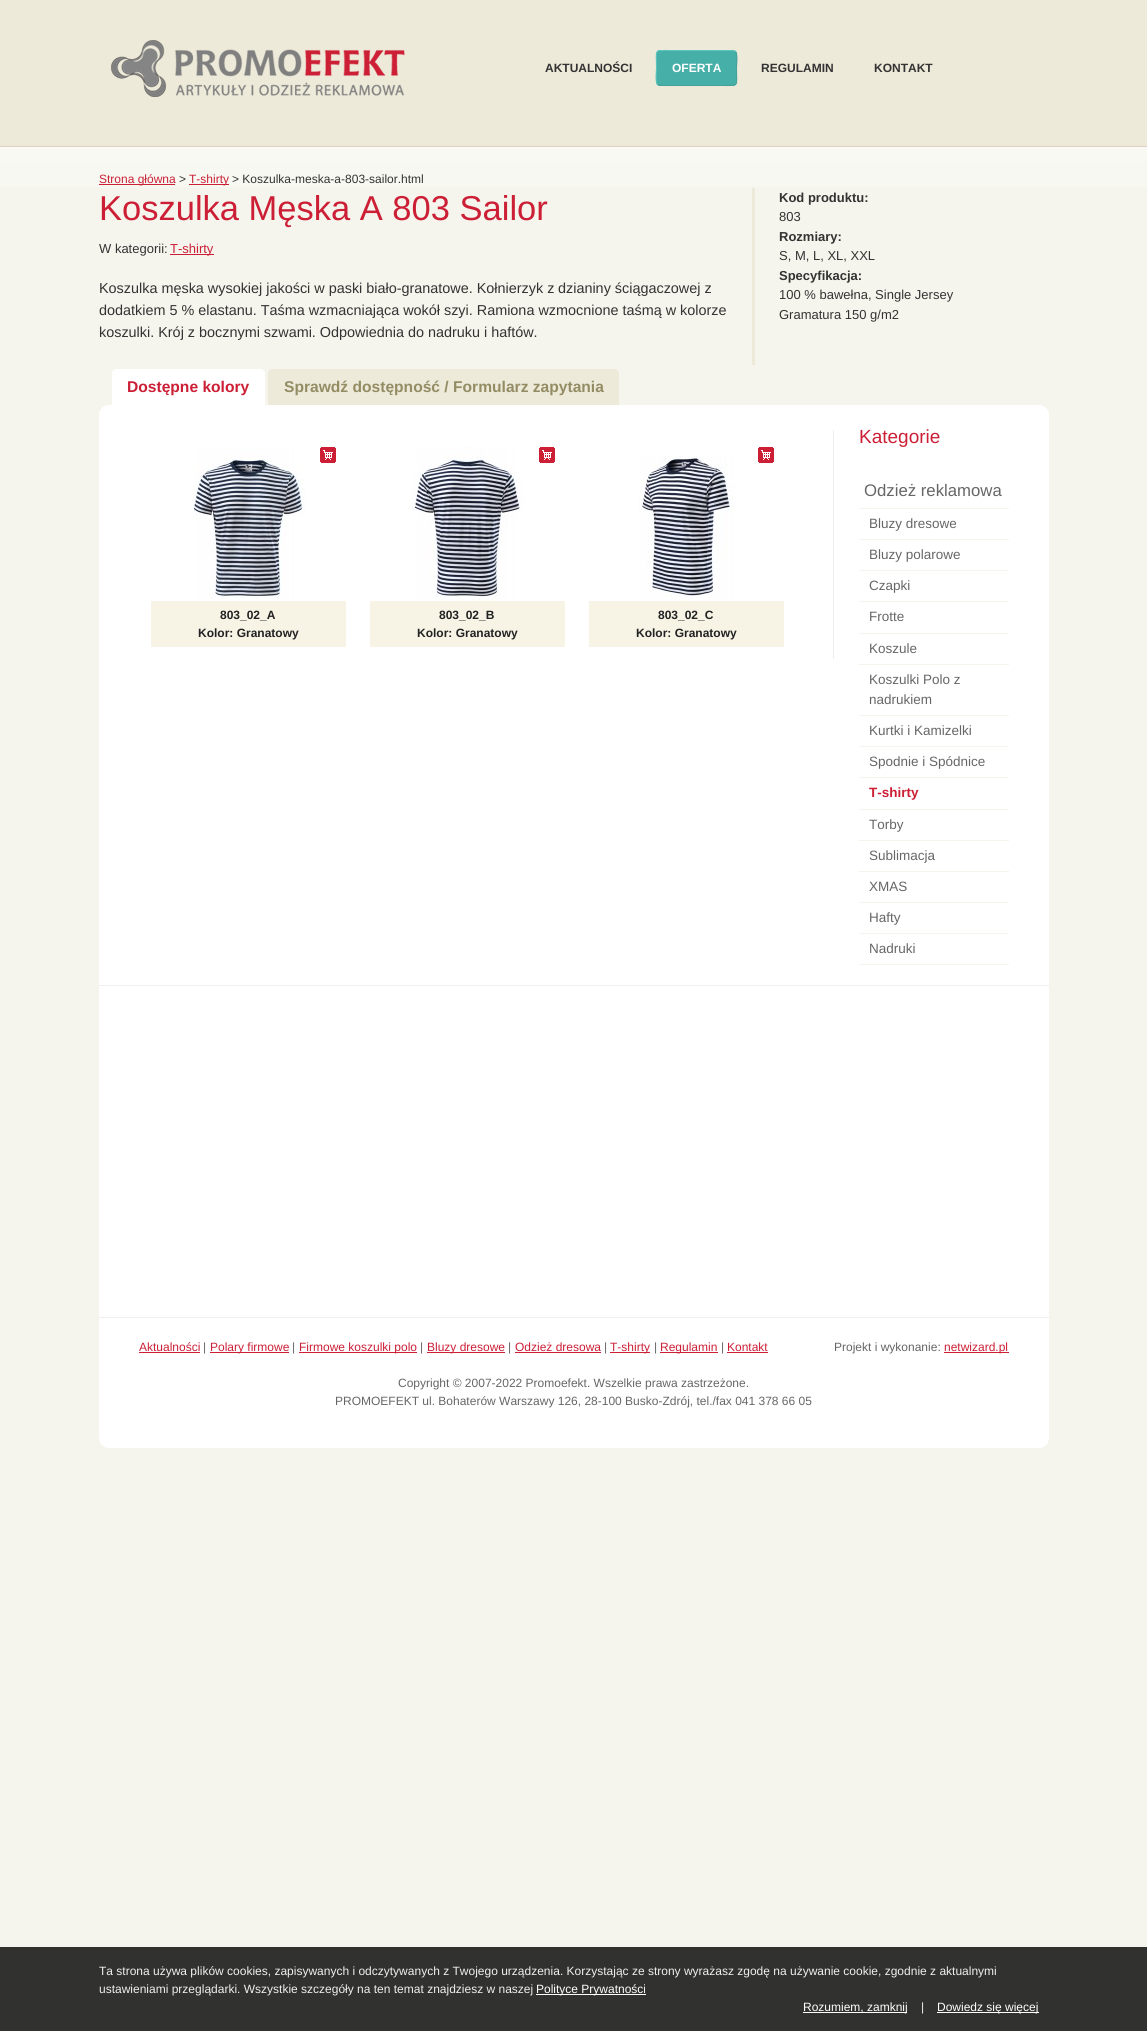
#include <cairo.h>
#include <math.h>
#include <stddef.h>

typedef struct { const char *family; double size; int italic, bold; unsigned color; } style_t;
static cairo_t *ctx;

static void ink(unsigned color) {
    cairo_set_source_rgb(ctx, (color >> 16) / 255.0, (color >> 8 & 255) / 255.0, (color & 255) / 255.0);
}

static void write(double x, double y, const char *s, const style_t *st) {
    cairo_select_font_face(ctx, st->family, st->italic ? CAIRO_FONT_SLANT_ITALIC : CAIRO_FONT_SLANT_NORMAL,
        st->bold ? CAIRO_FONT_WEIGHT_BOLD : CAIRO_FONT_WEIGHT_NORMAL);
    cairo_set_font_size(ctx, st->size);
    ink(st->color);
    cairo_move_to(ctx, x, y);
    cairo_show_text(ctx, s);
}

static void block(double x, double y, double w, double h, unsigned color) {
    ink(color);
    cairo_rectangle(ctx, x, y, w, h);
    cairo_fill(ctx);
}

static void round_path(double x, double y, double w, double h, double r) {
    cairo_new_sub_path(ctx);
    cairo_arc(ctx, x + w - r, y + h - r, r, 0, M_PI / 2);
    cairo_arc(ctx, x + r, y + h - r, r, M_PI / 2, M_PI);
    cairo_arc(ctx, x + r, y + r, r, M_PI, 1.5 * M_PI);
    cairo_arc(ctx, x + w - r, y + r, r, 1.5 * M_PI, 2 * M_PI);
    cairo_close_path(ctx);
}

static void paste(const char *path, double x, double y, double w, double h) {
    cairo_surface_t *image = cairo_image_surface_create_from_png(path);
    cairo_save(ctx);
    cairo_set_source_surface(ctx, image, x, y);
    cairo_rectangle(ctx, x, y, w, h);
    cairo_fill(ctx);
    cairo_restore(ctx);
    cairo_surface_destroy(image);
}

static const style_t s1 = {"Liberation Sans", 12, 0, 1, 0x333333};
static const style_t s2 = {"Liberation Sans", 12, 0, 1, 0xffffff};
static const style_t s3 = {"Liberation Sans", 12, 0, 0, 0xcc1f36};
static const style_t s4 = {"Liberation Sans", 12, 0, 0, 0x333333};
static const style_t s5 = {"Liberation Sans", 34.5, 0, 0, 0xcc1f36};
static const style_t s6 = {"Liberation Sans", 13, 0, 0, 0x333333};
static const style_t s7 = {"Liberation Sans", 13, 0, 0, 0xcc1f36};
static const style_t s8 = {"Liberation Sans", 14.4, 0, 0, 0x333333};
static const style_t s9 = {"Liberation Sans", 13, 0, 1, 0x333333};
static const style_t s10 = {"Liberation Sans", 15.6, 0, 1, 0xcc1f36};
static const style_t s11 = {"Liberation Sans", 15.6, 0, 1, 0x938c64};
static const style_t s12 = {"Liberation Sans", 12, 0, 1, 0x222222};
static const style_t s13 = {"Liberation Sans", 19, 0, 0, 0xcc1f36};
static const style_t s14 = {"Liberation Sans", 16.75, 0, 0, 0x666666};
static const style_t s15 = {"Liberation Sans", 13.5, 0, 0, 0x666666};
static const style_t s16 = {"Liberation Sans", 13.5, 0, 1, 0xcc1f36};
static const style_t s17 = {"Liberation Sans", 12, 0, 0, 0x666666};
static const style_t s18 = {"Liberation Sans", 12, 0, 0, 0xefefef};
static const style_t s19 = {"Liberation Sans", 12, 0, 0, 0xffffff};

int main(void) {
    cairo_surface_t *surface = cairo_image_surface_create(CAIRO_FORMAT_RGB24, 1147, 2031);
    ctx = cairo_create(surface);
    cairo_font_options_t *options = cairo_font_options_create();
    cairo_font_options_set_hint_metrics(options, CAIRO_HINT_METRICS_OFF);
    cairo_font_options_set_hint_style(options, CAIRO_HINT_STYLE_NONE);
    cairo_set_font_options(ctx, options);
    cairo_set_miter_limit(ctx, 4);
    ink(0xf5f5ed);
    cairo_paint(ctx);
    paste("pic1.png", 0, 0, 1147, 187);
    paste("pic2.png", 111, 40, 294, 57);
    write(545, 72, "AKTUALNOŚCI", &s1);
    ink(0x46afa8);
    round_path(656, 50, 81, 36, 4);
    cairo_fill(ctx);
    cairo_new_path(ctx);
    cairo_move_to(ctx, 735.5, 51.5);
    cairo_curve_to(ctx, 738, 54, 736.5, 65, 736.5, 68);
    cairo_curve_to(ctx, 736.5, 87.5, 740, 85.5, 721, 85.5);
    cairo_line_to(ctx, 660, 85.5);
    cairo_line_to(ctx, 657.5, 84.5);
    ink(0x45a099);
    cairo_set_line_width(ctx, 1);
    cairo_stroke(ctx);
    cairo_new_path(ctx);
    cairo_move_to(ctx, 657.5, 84.5);
    cairo_curve_to(ctx, 655, 82, 656.5, 71, 656.5, 68);
    cairo_curve_to(ctx, 656.5, 48.5, 653, 50.5, 672, 50.5);
    cairo_line_to(ctx, 733, 50.5);
    cairo_line_to(ctx, 735.5, 51.5);
    ink(0x5dc6be);
    cairo_stroke(ctx);
    write(672, 72, "OFERTA", &s2);
    write(761, 72, "REGULAMIN", &s1);
    write(874, 72, "KONTAKT", &s1);
    block(99, 184, 76, 1, 0xcd2036);
    write(99, 183, "Strona główna", &s3);
    write(179, 183, ">", &s4);
    block(189, 184, 40, 1, 0xcd2036);
    write(189, 183, "T-shirty", &s3);
    write(232, 183, "> Koszulka-meska-a-803-sailor.html", &s4);
    block(752, 188, 3, 177, 0xedead9);
    write(99, 220, "Koszulka Męska A 803 Sailor", &s5);
    write(99, 253, "W kategorii:", &s6);
    block(170, 254, 44, 1, 0xcc1f36);
    write(170, 253, "T-shirty", &s7);
    write(99, 293, "Koszulka męska wysokiej jakości w paski biało-granatowe. Kołnierzyk z", &s8);
    write(558, 293, "dzianiny ściągaczowej z", &s8);
    write(99, 315, "dodatkiem 5 % elastanu. Taśma wzmacniająca wokół szyi. Ramiona wzmocnione taśmą w kolorze", &s8);
    write(99, 337, "koszulki. Krój z bocznymi szwami. Odpowiednia do nadruku i haftów.", &s8);
    write(779, 202, "Kod produktu:", &s9);
    write(779, 221, "803", &s6);
    write(779, 241, "Rozmiary:", &s9);
    write(779, 260, "S, M, L, XL, XXL", &s6);
    write(779, 280, "Specyfikacja:", &s9);
    write(779, 299, "100 % bawełna, Single Jersey", &s6);
    write(779, 319, "Gramatura 150 g/m2", &s6);
    ink(0xffffff);
    cairo_new_path(ctx);
    cairo_move_to(ctx, 109, 405);
    cairo_line_to(ctx, 1039, 405);
    cairo_curve_to(ctx, 1044.5, 405, 1049, 409.5, 1049, 415);
    cairo_line_to(ctx, 1049, 985);
    cairo_line_to(ctx, 99, 985);
    cairo_line_to(ctx, 99, 415);
    cairo_curve_to(ctx, 99, 409.5, 103.5, 405, 109, 405);
    cairo_close_path(ctx);
    cairo_fill(ctx);
    block(833, 430, 1, 229, 0xeeeeee);
    ink(0xffffff);
    cairo_new_path(ctx);
    cairo_move_to(ctx, 117, 369);
    cairo_line_to(ctx, 260, 369);
    cairo_curve_to(ctx, 263, 369, 265, 371, 265, 374);
    cairo_line_to(ctx, 265, 405);
    cairo_line_to(ctx, 112, 405);
    cairo_line_to(ctx, 112, 374);
    cairo_curve_to(ctx, 112, 371, 114, 369, 117, 369);
    cairo_close_path(ctx);
    cairo_fill(ctx);
    write(127, 392, "Dostępne kolory", &s10);
    ink(0xedead9);
    cairo_new_path(ctx);
    cairo_move_to(ctx, 273, 369);
    cairo_line_to(ctx, 614, 369);
    cairo_curve_to(ctx, 617, 369, 619, 371, 619, 374);
    cairo_line_to(ctx, 619, 405);
    cairo_line_to(ctx, 268, 405);
    cairo_line_to(ctx, 268, 374);
    cairo_curve_to(ctx, 268, 371, 270, 369, 273, 369);
    cairo_close_path(ctx);
    cairo_fill(ctx);
    write(284, 392, "Sprawdź dostępność / Formularz zapytania", &s11);
    paste("pic3.png", 193, 447, 112, 152);
    paste("pic4.png", 320, 447, 16, 16);
    block(151, 601, 195, 46, 0xf7f4e6);
    write(220, 619, "803_02_A", &s12);
    write(198, 637, "Kolor: Granatowy", &s12);
    paste("pic5.png", 412, 447, 112, 154);
    paste("pic4.png", 539, 447, 16, 16);
    block(370, 601, 195, 46, 0xf7f4e6);
    write(439, 619, "803_02_B", &s12);
    write(417, 637, "Kolor: Granatowy", &s12);
    paste("pic6.png", 639, 455, 96, 146);
    paste("pic4.png", 758, 447, 16, 16);
    block(589, 601, 195, 46, 0xf7f4e6);
    write(658, 619, "803_02_C", &s12);
    write(636, 637, "Kolor: Granatowy", &s12);
    write(859, 443, "Kategorie", &s13);
    block(859, 508, 150, 1, 0xf5f5ed);
    write(864, 496, "Odzież reklamowa", &s14);
    block(859, 539, 150, 1, 0xf5f5ed);
    write(869, 528, "Bluzy dresowe", &s15);
    block(859, 570, 150, 1, 0xf5f5ed);
    write(869, 559, "Bluzy polarowe", &s15);
    block(859, 601, 150, 1, 0xf5f5ed);
    write(869, 590, "Czapki", &s15);
    block(859, 633, 150, 1, 0xf5f5ed);
    write(869, 621, "Frotte", &s15);
    block(859, 664, 150, 1, 0xf5f5ed);
    write(869, 653, "Koszule", &s15);
    block(859, 715, 150, 1, 0xf5f5ed);
    write(869, 684, "Koszulki Polo z", &s15);
    write(869, 704, "nadrukiem", &s15);
    block(859, 746, 150, 1, 0xf5f5ed);
    write(869, 735, "Kurtki i Kamizelki", &s15);
    block(859, 777, 150, 1, 0xf5f5ed);
    write(869, 766, "Spodnie i Spódnice", &s15);
    block(859, 809, 150, 1, 0xf5f5ed);
    write(869, 797, "T-shirty", &s16);
    block(859, 840, 150, 1, 0xf5f5ed);
    write(869, 829, "Torby", &s15);
    block(859, 871, 150, 1, 0xf5f5ed);
    write(869, 860, "Sublimacja", &s15);
    block(859, 902, 150, 1, 0xf5f5ed);
    write(869, 891, "XMAS", &s15);
    block(859, 933, 150, 1, 0xf5f5ed);
    write(869, 922, "Hafty", &s15);
    block(859, 964, 150, 1, 0xf5f5ed);
    write(869, 953, "Nadruki", &s15);
    block(99, 986, 950, 331, 0xffffff);
    block(99, 985, 950, 1, 0xefefef);
    ink(0xffffff);
    cairo_new_path(ctx);
    cairo_move_to(ctx, 99, 1317);
    cairo_line_to(ctx, 1049, 1317);
    cairo_line_to(ctx, 1049, 1438);
    cairo_curve_to(ctx, 1049, 1443.5, 1044.5, 1448, 1039, 1448);
    cairo_line_to(ctx, 109, 1448);
    cairo_curve_to(ctx, 103.5, 1448, 99, 1443.5, 99, 1438);
    cairo_close_path(ctx);
    cairo_fill(ctx);
    block(99, 1317, 950, 1, 0xefefef);
    write(139, 1351, "Aktualności", &s3);
    block(139, 1352, 61, 1, 0xcd2036);
    write(203, 1351, "|", &s17);
    block(210, 1352, 79, 1, 0xcd2036);
    write(210, 1351, "Polary firmowe", &s3);
    write(292, 1351, "|", &s17);
    block(299, 1352, 118, 1, 0xcd2036);
    write(299, 1351, "Firmowe koszulki polo", &s3);
    write(420, 1351, "|", &s17);
    block(427, 1352, 78, 1, 0xcd2036);
    write(427, 1351, "Bluzy dresowe", &s3);
    write(508, 1351, "|", &s17);
    write(515, 1351, "Odzież dresowa", &s3);
    block(515, 1352, 86, 1, 0xcd2036);
    write(604, 1351, "|", &s17);
    block(610, 1352, 40, 1, 0xcd2036);
    write(610, 1351, "T-shirty", &s3);
    write(654, 1351, "|", &s17);
    block(660, 1352, 58, 1, 0xcd2036);
    write(660, 1351, "Regulamin", &s3);
    write(721, 1351, "|", &s17);
    write(727, 1351, "Kontakt", &s3);
    block(727, 1352, 41, 1, 0xcd2036);
    write(834, 1351, "Projekt i wykonanie:", &s17);
    block(944, 1352, 65, 1, 0xcd2036);
    write(944, 1351, "netwizard.pl", &s3);
    write(398, 1387, "Copyright © 2007-2022 Promoefekt. Wszelkie prawa zastrzeżone.", &s17);
    write(335, 1405, "PROMOEFEKT ul. Bohaterów Warszawy 126, 28-100 Busko-Zdrój, tel./fax 041 378 66 05", &s17);
    block(0, 1947, 1147, 84, 0x31312f);
    write(99, 1975, "Ta strona używa plików cookies, zapisywanych i odczytywanych z Twojego urządzenia. Korzystając ze strony wyrażasz zgodę na używanie cookie, zgodnie z aktualnymi", &s18);
    write(99, 1993, "ustawieniami przeglądarki. Wszystkie szczegóły na ten temat znajdziesz w naszej", &s18);
    block(536, 1994, 110, 1, 0xffffff);
    write(536, 1993, "Polityce Prywatności", &s19);
    block(803, 2012, 104, 1, 0xffffff);
    write(803, 2011, "Rozumiem, zamknij", &s19);
    write(921, 2011, "|", &s18);
    block(937, 2012, 102, 1, 0xffffff);
    write(937, 2011, "Dowiedz się więcej", &s19);
    cairo_surface_write_to_png(surface, "screenshot.png");
    cairo_font_options_destroy(options);
    cairo_destroy(ctx);
    cairo_surface_destroy(surface);
    return 0;
}
